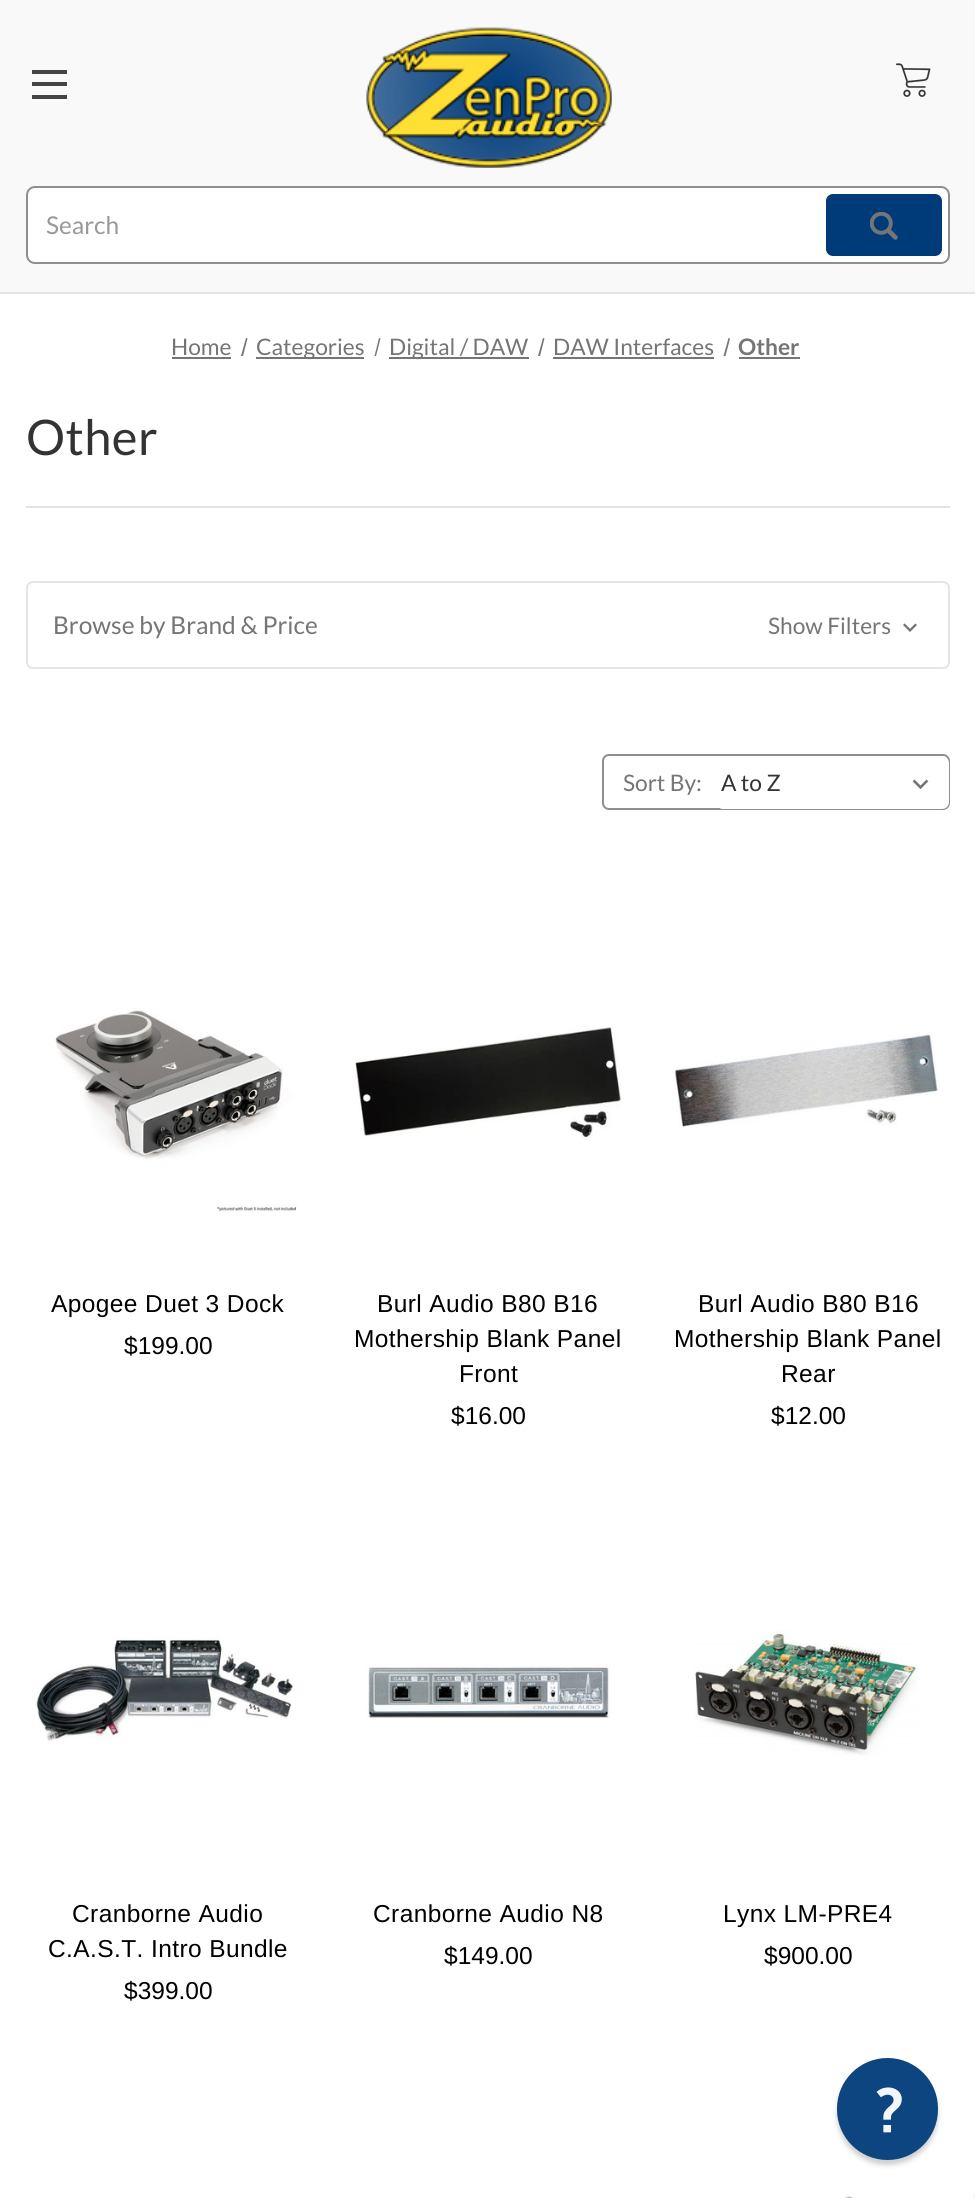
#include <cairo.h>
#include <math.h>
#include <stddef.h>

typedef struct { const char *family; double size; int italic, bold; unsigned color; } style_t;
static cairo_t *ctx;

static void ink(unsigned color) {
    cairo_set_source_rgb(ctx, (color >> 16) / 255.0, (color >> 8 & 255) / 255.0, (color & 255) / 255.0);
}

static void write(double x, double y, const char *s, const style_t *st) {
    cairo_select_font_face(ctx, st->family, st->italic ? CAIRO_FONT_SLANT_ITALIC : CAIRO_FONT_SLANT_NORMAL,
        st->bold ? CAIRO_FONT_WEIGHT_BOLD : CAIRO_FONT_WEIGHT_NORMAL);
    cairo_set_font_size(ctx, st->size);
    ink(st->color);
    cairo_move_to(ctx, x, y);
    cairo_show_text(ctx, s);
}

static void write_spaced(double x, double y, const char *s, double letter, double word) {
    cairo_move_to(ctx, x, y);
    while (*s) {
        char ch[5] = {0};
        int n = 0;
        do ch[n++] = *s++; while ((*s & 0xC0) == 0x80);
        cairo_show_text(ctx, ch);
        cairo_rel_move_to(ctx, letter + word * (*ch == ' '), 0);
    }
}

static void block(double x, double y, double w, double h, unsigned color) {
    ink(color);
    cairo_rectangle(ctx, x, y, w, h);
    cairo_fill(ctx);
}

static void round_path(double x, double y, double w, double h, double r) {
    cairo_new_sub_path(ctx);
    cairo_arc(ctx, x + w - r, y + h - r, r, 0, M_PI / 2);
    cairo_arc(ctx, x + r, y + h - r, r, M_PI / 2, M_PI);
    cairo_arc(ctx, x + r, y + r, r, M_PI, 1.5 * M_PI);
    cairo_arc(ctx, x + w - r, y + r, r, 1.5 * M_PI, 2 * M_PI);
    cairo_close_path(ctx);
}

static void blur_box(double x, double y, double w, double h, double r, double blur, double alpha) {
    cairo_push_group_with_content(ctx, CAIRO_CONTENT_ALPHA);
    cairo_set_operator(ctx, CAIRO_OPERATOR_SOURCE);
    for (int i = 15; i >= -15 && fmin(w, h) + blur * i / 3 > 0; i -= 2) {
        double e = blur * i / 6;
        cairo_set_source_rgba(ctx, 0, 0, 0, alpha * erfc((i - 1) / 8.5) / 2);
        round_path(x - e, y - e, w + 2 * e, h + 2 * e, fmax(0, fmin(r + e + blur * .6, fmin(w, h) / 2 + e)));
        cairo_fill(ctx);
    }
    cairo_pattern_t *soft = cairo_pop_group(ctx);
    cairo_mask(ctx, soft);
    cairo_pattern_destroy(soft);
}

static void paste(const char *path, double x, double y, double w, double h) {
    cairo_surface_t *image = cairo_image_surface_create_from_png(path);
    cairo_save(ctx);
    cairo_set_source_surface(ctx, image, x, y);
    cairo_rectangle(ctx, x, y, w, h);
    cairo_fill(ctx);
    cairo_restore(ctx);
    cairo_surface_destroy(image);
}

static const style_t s1 = {"Lato", 24.5, 0, 0, 0x999999};
static const style_t s2 = {"Lato", 22.75, 0, 0, 0x757575};
static const style_t s3 = {"Lato", 22.75, 0, 1, 0x757575};
static const style_t s4 = {"Lato", 24.5, 0, 0, 0x757575};
static const style_t s5 = {"Lato", 22.75, 0, 0, 0x333333};
static const style_t s6 = {"Liberation Sans", 24.5, 0, 0, 0x000000};

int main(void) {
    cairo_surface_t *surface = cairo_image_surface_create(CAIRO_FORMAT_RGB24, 975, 2198);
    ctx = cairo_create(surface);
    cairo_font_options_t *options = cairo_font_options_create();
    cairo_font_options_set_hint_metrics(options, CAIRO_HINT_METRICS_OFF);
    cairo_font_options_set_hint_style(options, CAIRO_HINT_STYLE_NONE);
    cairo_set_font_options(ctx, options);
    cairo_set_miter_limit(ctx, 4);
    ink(0xffffff);
    cairo_paint(ctx);
    block(0, 0, 975, 292, 0xf9f9f9);
    block(0, 292, 975, 2, 0xe5e5e5);
    block(32, 82, 35, 4, 0x444444);
    block(32, 70, 35, 4, 0x444444);
    block(32, 95, 35, 4, 0x444444);
    paste("pic1.png", 366, 27, 247, 141);
    paste("pic2.png", 896, 63, 35, 34);
    ink(0xffffff);
    round_path(27, 187, 922, 76, 8);
    cairo_fill_preserve(ctx);
    ink(0x8f8f8f);
    cairo_stroke(ctx);
    write(46, 234, "Search", &s1);
    ink(0x003b79);
    round_path(826, 194, 116, 62, 7);
    cairo_fill(ctx);
    paste("pic3.png", 870, 212, 28, 28);
    write(171, 355, "Home", &s2);
    block(172, 357, 59, 2, 0x757575);
    cairo_new_path(ctx);
    cairo_move_to(ctx, 246, 338);
    cairo_line_to(ctx, 247.5, 338.5);
    cairo_line_to(ctx, 243, 356);
    cairo_line_to(ctx, 241, 356);
    cairo_close_path(ctx);
    cairo_fill(ctx);
    block(256, 357, 108, 2, 0x757575);
    write(256, 355, "Categories", &s2);
    cairo_new_path(ctx);
    cairo_move_to(ctx, 379, 338);
    cairo_line_to(ctx, 380.5, 338.5);
    cairo_line_to(ctx, 376, 356);
    cairo_line_to(ctx, 374.5, 356);
    cairo_close_path(ctx);
    cairo_fill(ctx);
    block(389, 357, 140, 2, 0x757575);
    write(389, 355, "Digital / DAW", &s2);
    cairo_new_path(ctx);
    cairo_move_to(ctx, 543, 338);
    cairo_line_to(ctx, 544.5, 338.5);
    cairo_line_to(ctx, 540, 356);
    cairo_line_to(ctx, 538, 356);
    cairo_close_path(ctx);
    cairo_fill(ctx);
    write(553, 355, "DAW Interfaces", &s2);
    block(553, 357, 161, 2, 0x757575);
    cairo_new_path(ctx);
    cairo_move_to(ctx, 728.5, 338);
    cairo_line_to(ctx, 730, 338.5);
    cairo_line_to(ctx, 725.5, 356);
    cairo_line_to(ctx, 723.5, 356);
    cairo_close_path(ctx);
    cairo_fill(ctx);
    write(738, 355, "Other", &s3);
    block(739, 357, 61, 2, 0x757575);
    block(26, 506, 924, 2, 0xe3e3e3);
    cairo_select_font_face(ctx, "Lato", CAIRO_FONT_SLANT_NORMAL, CAIRO_FONT_WEIGHT_NORMAL);
    cairo_set_font_size(ctx, 49);
    ink(0x333333);
    write_spaced(26, 455, "Other", 0.4, 0);
    round_path(27, 582, 922, 86, 6);
    ink(0xe5e5e5);
    cairo_stroke(ctx);
    write(53, 634, "Browse by Brand & Price", &s4);
    write(768, 634, "Show Filters", &s2);
    paste("pic4.png", 903, 623, 14, 9);
    round_path(603, 755, 346, 54, 6);
    ink(0x8f8f8f);
    cairo_stroke(ctx);
    write(623, 791, "Sort By:", &s2);
    ink(0xffffff);
    round_path(716, 756, 233, 53, 7);
    cairo_fill(ctx);
    paste("pic5.png", 912, 779, 17, 11);
    write(721, 791, "A to Z", &s5);
    paste("pic6.png", 53, 1008, 245, 204);
    cairo_select_font_face(ctx, "Liberation Sans", CAIRO_FONT_SLANT_NORMAL, CAIRO_FONT_WEIGHT_NORMAL);
    cairo_set_font_size(ctx, 24.5);
    ink(0x000000);
    write_spaced(51, 1312, "Apogee Duet 3 Dock", 0.4, 0);
    write(124, 1354, "$199.00", &s6);
    paste("pic7.png", 354, 1027, 271, 111);
    write_spaced(377, 1312, "Burl Audio B80 B16", 0.4, 0);
    write_spaced(354, 1347, "Mothership Blank Panel", 0.4, 0);
    write_spaced(459, 1382, "Front", 0.4, 0);
    write(451, 1424, "$16.00", &s6);
    paste("pic8.png", 673, 1034, 265, 93);
    write_spaced(698, 1312, "Burl Audio B80 B16", 0.4, 0);
    write_spaced(674, 1347, "Mothership Blank Panel", 0.4, 0);
    write_spaced(781, 1382, "Rear", 0.4, 0);
    write(771, 1424, "$12.00", &s6);
    paste("pic9.png", 34, 1636, 261, 109);
    write_spaced(72, 1922, "Cranborne Audio", 0.4, 0);
    write_spaced(48, 1957, "C.A.S.T. Intro Bundle", 0.4, 0);
    write(124, 1999, "$399.00", &s6);
    paste("pic10.png", 366, 1664, 245, 54);
    write_spaced(373, 1922, "Cranborne Audio N8", 0.4, 0);
    write(444, 1964, "$149.00", &s6);
    paste("pic11.png", 694, 1629, 224, 127);
    write_spaced(723, 1922, "Lynx LM-PRE4", 0.4, 0);
    write(764, 1964, "$900.00", &s6);
    paste("pic12.png", 845, 2196, 8, 2);
    ink(0x0d0d0d);
    blur_box(837, 2063, 101, 102, 50.5, 2.5, 0.2);
    ink(0x0d4580);
    round_path(837, 2058, 101, 102, 50.5);
    cairo_fill(ctx);
    paste("pic13.png", 876, 2087, 26, 46);
    block(973, 2195, 2, 3, 0xf5f5f5);
    cairo_surface_write_to_png(surface, "screenshot.png");
    cairo_font_options_destroy(options);
    cairo_destroy(ctx);
    cairo_surface_destroy(surface);
    return 0;
}
